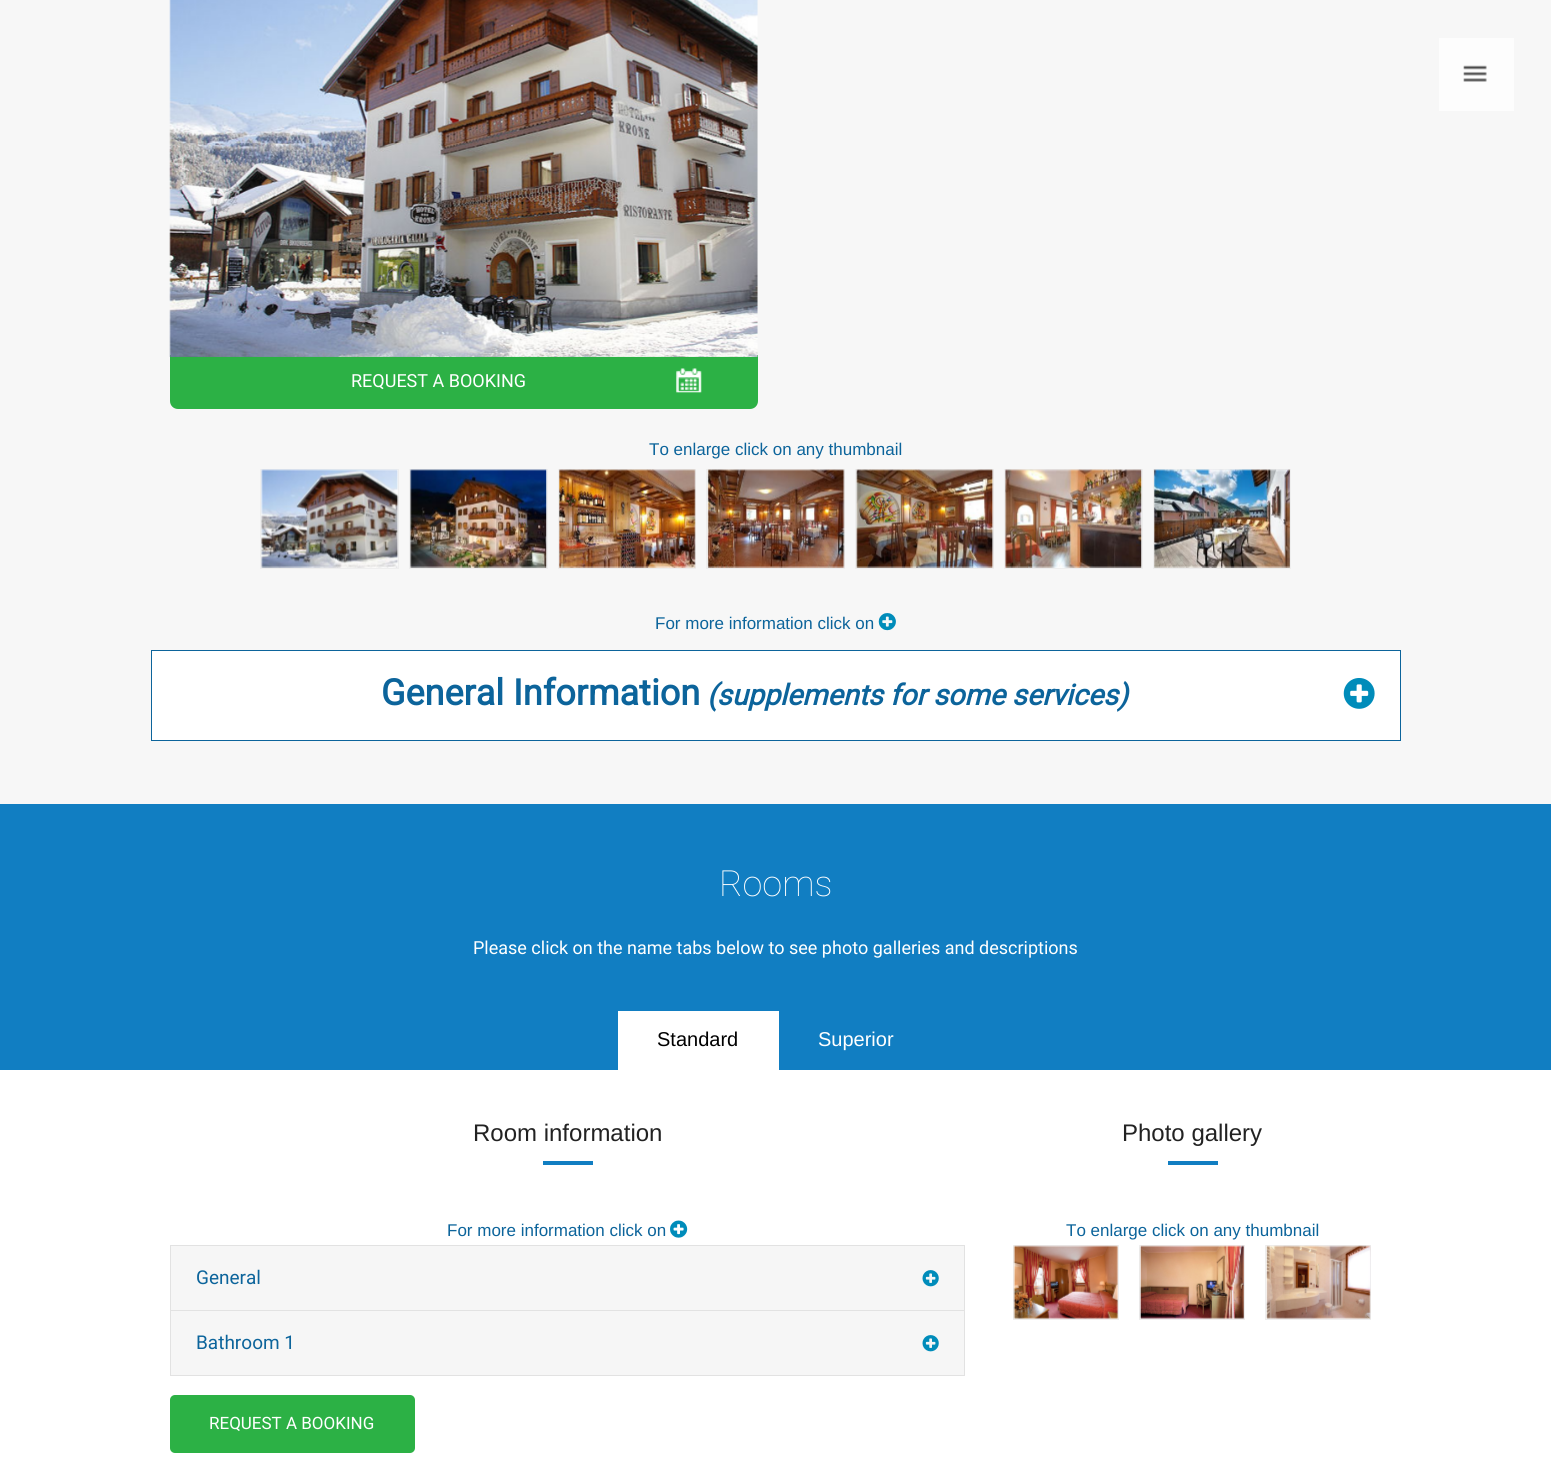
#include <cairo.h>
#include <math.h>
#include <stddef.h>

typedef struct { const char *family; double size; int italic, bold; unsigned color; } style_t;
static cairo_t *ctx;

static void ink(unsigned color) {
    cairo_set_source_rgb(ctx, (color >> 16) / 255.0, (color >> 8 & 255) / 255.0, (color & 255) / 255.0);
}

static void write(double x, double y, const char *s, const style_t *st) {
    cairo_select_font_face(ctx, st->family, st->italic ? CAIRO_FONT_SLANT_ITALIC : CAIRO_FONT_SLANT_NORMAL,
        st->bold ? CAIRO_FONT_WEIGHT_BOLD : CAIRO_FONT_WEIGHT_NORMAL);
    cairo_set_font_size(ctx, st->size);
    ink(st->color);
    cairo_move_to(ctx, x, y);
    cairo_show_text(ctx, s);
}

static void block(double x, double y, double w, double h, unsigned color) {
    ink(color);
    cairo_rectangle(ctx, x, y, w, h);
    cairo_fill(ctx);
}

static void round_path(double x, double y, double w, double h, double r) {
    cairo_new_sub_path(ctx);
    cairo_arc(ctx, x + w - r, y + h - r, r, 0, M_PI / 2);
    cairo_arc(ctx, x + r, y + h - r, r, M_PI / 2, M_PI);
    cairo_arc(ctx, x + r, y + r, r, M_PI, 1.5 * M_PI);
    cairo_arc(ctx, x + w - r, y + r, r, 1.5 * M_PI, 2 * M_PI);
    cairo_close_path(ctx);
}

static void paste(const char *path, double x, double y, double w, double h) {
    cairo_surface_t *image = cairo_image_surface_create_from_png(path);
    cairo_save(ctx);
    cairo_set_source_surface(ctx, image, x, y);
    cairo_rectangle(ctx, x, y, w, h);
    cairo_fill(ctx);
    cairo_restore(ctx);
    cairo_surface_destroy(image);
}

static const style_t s1 = {"Roboto", 18, 0, 0, 0xffffff};
static const style_t s2 = {"Liberation Sans", 17, 0, 0, 0x0c649b};
static const style_t s3 = {"Roboto", 36, 0, 1, 0x0c649b};
static const style_t s4 = {"Roboto", 28.75, 1, 1, 0x0c649b};
static const style_t s5 = {"Roboto Thin", 36, 0, 0, 0xffffff};
static const style_t s6 = {"Liberation Sans", 20, 0, 0, 0x000000};
static const style_t s7 = {"Liberation Sans", 20, 0, 0, 0xffffff};
static const style_t s8 = {"Liberation Sans", 24, 0, 0, 0x222222};
static const style_t s9 = {"Roboto", 19, 0, 0, 0x0c649b};
static const style_t s10 = {"Roboto", 17, 0, 0, 0xffffff};

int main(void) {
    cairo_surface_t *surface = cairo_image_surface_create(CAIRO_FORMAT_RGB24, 1551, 1470);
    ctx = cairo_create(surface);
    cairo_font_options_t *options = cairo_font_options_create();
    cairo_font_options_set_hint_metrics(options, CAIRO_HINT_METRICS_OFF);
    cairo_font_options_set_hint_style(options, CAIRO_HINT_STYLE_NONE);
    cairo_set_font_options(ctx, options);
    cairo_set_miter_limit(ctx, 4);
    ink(0xf7f7f7);
    cairo_paint(ctx);
    block(1439, 38, 75, 73, 0xfdfdfd);
    paste("pic1.png", 1463, 65, 24, 17);
    ink(0x2cb145);
    cairo_new_path(ctx);
    cairo_move_to(ctx, 170, 355);
    cairo_line_to(ctx, 758, 355);
    cairo_line_to(ctx, 758, 401);
    cairo_curve_to(ctx, 758, 405.5, 754.5, 409, 750, 409);
    cairo_line_to(ctx, 178, 409);
    cairo_curve_to(ctx, 173.5, 409, 170, 405.5, 170, 401);
    cairo_close_path(ctx);
    cairo_fill(ctx);
    paste("pic2.png", 169, 0, 589, 357);
    paste("pic3.png", 676, 368, 26, 25);
    write(351, 387, "REQUEST A BOOKING", &s1);
    write(649, 455, "To enlarge click on any thumbnail", &s2);
    cairo_rectangle(ctx, 260.5, 469.5, 138, 99);
    ink(0xeeeeee);
    cairo_set_line_width(ctx, 1);
    cairo_stroke(ctx);
    paste("pic4.png", 261, 469, 138, 99);
    cairo_rectangle(ctx, 409.5, 469.5, 138, 99);
    cairo_stroke(ctx);
    paste("pic5.png", 410, 469, 137, 99);
    cairo_rectangle(ctx, 558.5, 469.5, 137, 99);
    cairo_stroke(ctx);
    paste("pic6.png", 559, 469, 137, 99);
    cairo_rectangle(ctx, 706.5, 469.5, 138, 99);
    cairo_stroke(ctx);
    paste("pic7.png", 707, 469, 138, 99);
    cairo_rectangle(ctx, 855.5, 469.5, 138, 99);
    cairo_stroke(ctx);
    paste("pic8.png", 856, 469, 138, 99);
    cairo_rectangle(ctx, 1004.5, 469.5, 138, 99);
    cairo_stroke(ctx);
    paste("pic9.png", 1005, 469, 137, 99);
    cairo_rectangle(ctx, 1153.5, 469.5, 137, 99);
    cairo_stroke(ctx);
    paste("pic10.png", 1154, 469, 136, 99);
    write(655, 629, "For more information click on", &s2);
    paste("pic11.png", 878, 613, 18, 18);
    ink(0xffffff);
    cairo_rectangle(ctx, 151.5, 650.5, 1249, 90);
    cairo_fill_preserve(ctx);
    ink(0x0c649b);
    cairo_stroke(ctx);
    write(381, 705, "General Information", &s3);
    write(707, 705, "(supplements for some services)", &s4);
    paste("pic12.png", 1343, 678, 32, 31);
    block(0, 804, 1551, 266, 0x117ec2);
    write(719, 896, "Rooms", &s5);
    write(473, 954, "Please click on the name tabs below to see photo galleries and descriptions", &s1);
    block(618, 1011, 161, 59, 0xffffff);
    write(657, 1046, "Standard", &s6);
    write(818, 1046, "Superior", &s7);
    block(0, 1070, 1551, 400, 0xffffff);
    write(473, 1141, "Room information", &s8);
    block(543, 1161, 50, 4, 0x117ec2);
    write(447, 1236, "For more information click on", &s2);
    paste("pic13.png", 670, 1220, 18, 18);
    block(170, 1375, 795, 1, 0xe2e2e2);
    block(171, 1246, 793, 64, 0xf6f6f6);
    block(170, 1245, 795, 1, 0xe2e2e2);
    block(964, 1245, 1, 65, 0xe2e2e2);
    block(170, 1245, 1, 65, 0xe2e2e2);
    write(196, 1284, "General", &s9);
    paste("pic14.png", 922, 1270, 17, 17);
    block(171, 1311, 793, 64, 0xf6f6f6);
    block(170, 1310, 795, 1, 0xe2e2e2);
    block(964, 1310, 1, 65, 0xe2e2e2);
    block(170, 1310, 1, 65, 0xe2e2e2);
    write(196, 1349, "Bathroom 1", &s9);
    paste("pic14.png", 922, 1335, 17, 17);
    write(1122, 1141, "Photo gallery", &s8);
    block(1168, 1161, 50, 4, 0x117ec2);
    write(1066, 1236, "To enlarge click on any thumbnail", &s2);
    cairo_rectangle(ctx, 1013.5, 1245.5, 105, 74);
    ink(0xeeeeee);
    cairo_stroke(ctx);
    paste("pic15.png", 1013, 1245, 105, 74);
    cairo_rectangle(ctx, 1139.5, 1245.5, 105, 74);
    cairo_stroke(ctx);
    paste("pic16.png", 1139, 1245, 105, 74);
    cairo_rectangle(ctx, 1265.5, 1245.5, 105, 74);
    cairo_stroke(ctx);
    paste("pic17.png", 1266, 1245, 105, 74);
    ink(0x2cb145);
    round_path(170, 1395, 245, 58, 5);
    cairo_fill(ctx);
    write(209, 1429, "REQUEST A BOOKING", &s10);
    cairo_surface_write_to_png(surface, "screenshot.png");
    cairo_font_options_destroy(options);
    cairo_destroy(ctx);
    cairo_surface_destroy(surface);
    return 0;
}
